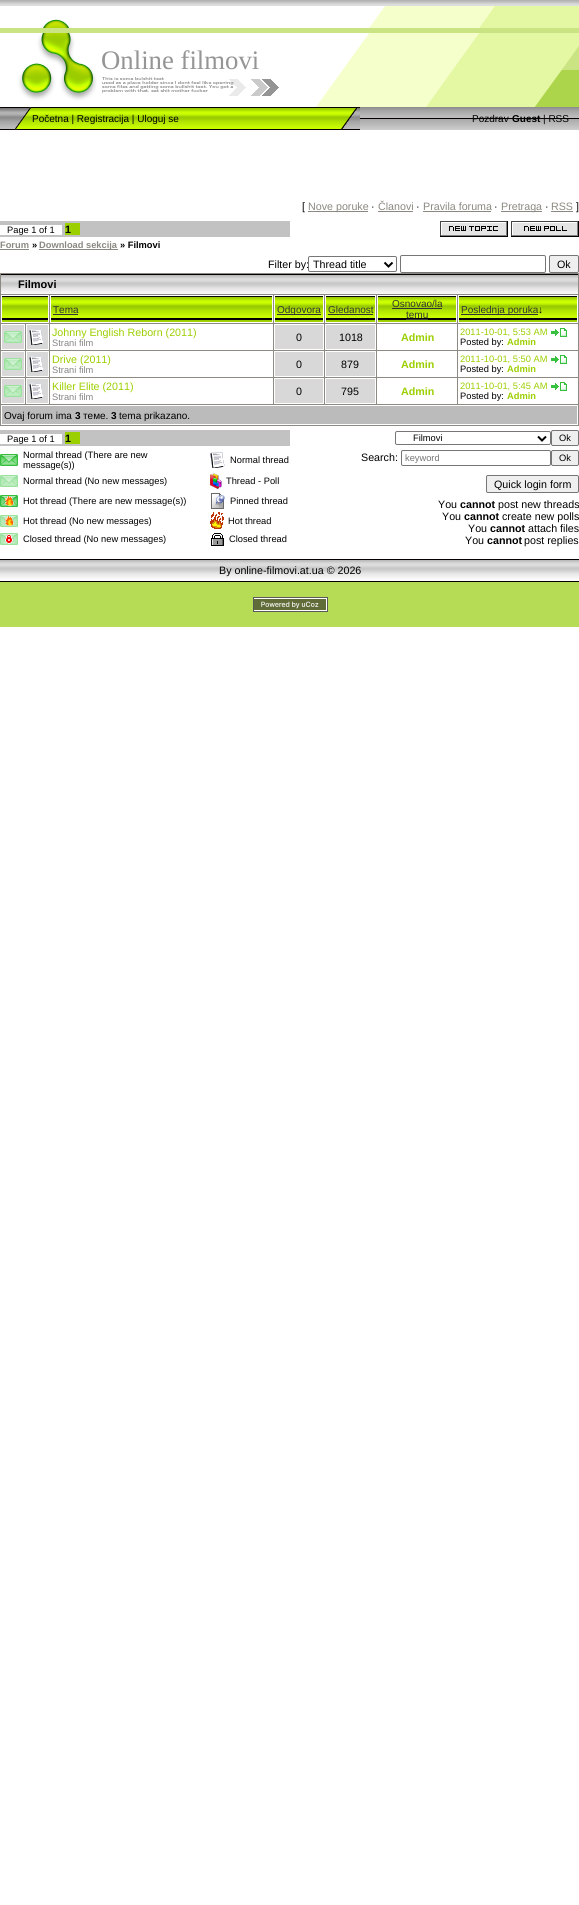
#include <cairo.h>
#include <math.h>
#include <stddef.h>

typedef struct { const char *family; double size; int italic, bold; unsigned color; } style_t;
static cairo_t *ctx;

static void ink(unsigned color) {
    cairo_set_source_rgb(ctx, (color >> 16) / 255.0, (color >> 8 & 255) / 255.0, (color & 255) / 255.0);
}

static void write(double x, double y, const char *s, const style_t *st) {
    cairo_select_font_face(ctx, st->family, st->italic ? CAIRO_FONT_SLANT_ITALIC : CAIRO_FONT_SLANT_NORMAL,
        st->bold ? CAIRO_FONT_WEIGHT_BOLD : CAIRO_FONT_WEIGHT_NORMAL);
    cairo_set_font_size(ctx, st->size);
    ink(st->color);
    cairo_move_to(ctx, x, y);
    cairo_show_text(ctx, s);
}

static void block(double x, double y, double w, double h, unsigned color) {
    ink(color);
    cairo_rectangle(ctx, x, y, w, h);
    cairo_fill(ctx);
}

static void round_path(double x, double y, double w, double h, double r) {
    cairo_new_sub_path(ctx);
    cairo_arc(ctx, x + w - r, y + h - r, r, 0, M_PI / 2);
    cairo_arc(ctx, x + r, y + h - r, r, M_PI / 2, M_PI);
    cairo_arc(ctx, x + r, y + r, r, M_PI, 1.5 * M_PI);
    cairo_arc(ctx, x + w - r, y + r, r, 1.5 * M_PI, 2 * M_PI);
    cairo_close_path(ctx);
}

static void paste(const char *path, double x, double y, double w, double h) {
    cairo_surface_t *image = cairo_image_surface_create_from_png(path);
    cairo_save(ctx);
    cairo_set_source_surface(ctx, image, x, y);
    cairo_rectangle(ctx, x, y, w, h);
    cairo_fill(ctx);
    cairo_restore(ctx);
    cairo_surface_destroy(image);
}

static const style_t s1 = {"Liberation Serif", 26.75, 0, 0, 0x969595};
static const style_t s2 = {"Liberation Sans", 10, 0, 0, 0x000000};
static const style_t s3 = {"Liberation Sans", 10, 0, 1, 0x000000};
static const style_t s4 = {"Liberation Sans", 10.7, 0, 0, 0x000000};
static const style_t s5 = {"Liberation Sans", 10.7, 0, 0, 0x8b8881};
static const style_t s6 = {"Liberation Sans", 9.3, 0, 0, 0x000000};
static const style_t s7 = {"Liberation Sans", 10.7, 0, 1, 0x000000};
static const style_t s8 = {"Liberation Sans", 9.3, 0, 1, 0x8b8881};
static const style_t s9 = {"Liberation Sans", 9.3, 0, 1, 0x000000};
static const style_t s10 = {"Liberation Sans", 11, 0, 1, 0x000000};
static const style_t s11 = {"Liberation Sans", 10, 0, 0, 0x333333};
static const style_t s12 = {"Liberation Sans", 10.7, 0, 0, 0x9ccf00};
static const style_t s13 = {"Liberation Sans", 9.3, 0, 0, 0x858585};
static const style_t s14 = {"Liberation Sans", 10.7, 0, 1, 0x9ccf00};
static const style_t s15 = {"Liberation Sans", 9.3, 0, 0, 0x9ccf00};
static const style_t s16 = {"Liberation Sans", 9.3, 0, 1, 0x9ccf00};
static const style_t s17 = {"Liberation Sans", 9.3, 0, 0, 0x757575};

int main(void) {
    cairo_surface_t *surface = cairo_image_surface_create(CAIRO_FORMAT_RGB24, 579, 1905);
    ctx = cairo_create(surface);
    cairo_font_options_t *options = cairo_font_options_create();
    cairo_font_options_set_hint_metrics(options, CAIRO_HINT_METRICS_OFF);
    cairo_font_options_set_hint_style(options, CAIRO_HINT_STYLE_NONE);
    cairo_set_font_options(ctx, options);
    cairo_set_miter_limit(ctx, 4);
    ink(0xffffff);
    cairo_paint(ctx);
    paste("pic1.png", 0, 0, 579, 130);
    paste("pic2.png", 0, 6, 101, 22);
    paste("pic3.png", 101, 6, 478, 22);
    paste("pic4.png", 0, 33, 101, 74);
    paste("pic5.png", 101, 33, 478, 74);
    write(101, 69, "Online filmovi", &s1);
    paste("pic6.png", 0, 107, 32, 23);
    paste("pic7.png", 32, 107, 301, 23);
    write(32, 122, "Početna | Registracija | Uloguj se", &s2);
    paste("pic8.png", 333, 107, 27, 23);
    write(472, 122, "Pozdrav", &s2);
    write(512, 122, "Guest", &s3);
    write(543, 122, "| RSS", &s2);
    write(302, 210, "[", &s4);
    block(308, 211, 60, 1, 0x8b8881);
    write(308, 210, "Nove poruke", &s5);
    write(371, 210, "·", &s4);
    write(378, 210, "Članovi", &s5);
    block(378, 211, 35, 1, 0x8b8881);
    write(416, 210, "·", &s4);
    write(423, 210, "Pravila foruma", &s5);
    block(423, 211, 68, 1, 0x8b8881);
    write(494, 210, "·", &s4);
    block(501, 211, 41, 1, 0x8b8881);
    write(501, 210, "Pretraga", &s5);
    write(545, 210, "·", &s4);
    write(551, 210, "RSS", &s5);
    block(551, 211, 22, 1, 0x8b8881);
    write(576, 210, "]", &s4);
    block(0, 221, 290, 16, 0xc2c2c2);
    block(0, 225, 62, 10, 0xffffff);
    write(7, 233, "Page 1 of 1", &s6);
    block(65, 223, 15, 12, 0x9ccf00);
    write(65, 233, "1", &s7);
    paste("pic9.png", 440, 221, 68, 16);
    paste("pic10.png", 511, 221, 68, 16);
    write(0, 248, "Forum", &s8);
    block(0, 249, 29, 1, 0x8b8881);
    write(32, 248, "»", &s9);
    block(39, 249, 79, 1, 0x8b8881);
    write(39, 248, "Download sekcija", &s8);
    write(120, 248, "» Filmovi", &s9);
    write(268, 268, "Filter by:", &s4);
    round_path(308.5, 256.5, 88, 15, 1.5);
    ink(0x767676);
    cairo_set_line_width(ctx, 1);
    cairo_stroke(ctx);
    cairo_new_path(ctx);
    cairo_move_to(ctx, 384.5, 262.5);
    cairo_line_to(ctx, 388.5, 266.5);
    cairo_line_to(ctx, 392.5, 262.5);
    ink(0x000000);
    cairo_set_line_width(ctx, 2);
    cairo_stroke(ctx);
    write(313, 268, "Thread title", &s4);
    round_path(400.5, 255.5, 145, 17, 1.5);
    ink(0x767676);
    cairo_set_line_width(ctx, 1);
    cairo_stroke(ctx);
    ink(0xefefef);
    round_path(549.5, 255.5, 29, 17, 1.5);
    cairo_fill_preserve(ctx);
    ink(0x767676);
    cairo_stroke(ctx);
    write(557, 268, "Ok", &s4);
    block(0, 273, 579, 153, 0x8c8a82);
    paste("pic11.png", 1, 274, 577, 20);
    write(18, 288, "Filmovi", &s10);
    paste("pic12.png", 2, 296, 46, 26);
    cairo_rectangle(ctx, 1.5, 295.5, 47, 27);
    ink(0xffffff);
    cairo_stroke(ctx);
    paste("pic13.png", 51, 296, 221, 26);
    cairo_rectangle(ctx, 50.5, 295.5, 222, 27);
    cairo_stroke(ctx);
    write(53, 313, "Tema", &s11);
    block(53, 314, 25, 1, 0x333333);
    paste("pic14.png", 275, 296, 48, 26);
    cairo_rectangle(ctx, 274.5, 295.5, 49, 27);
    ink(0xffffff);
    cairo_stroke(ctx);
    block(277, 314, 44, 1, 0x333333);
    write(277, 313, "Odgovora", &s11);
    paste("pic15.png", 326, 296, 49, 26);
    cairo_rectangle(ctx, 325.5, 295.5, 50, 27);
    ink(0xffffff);
    cairo_stroke(ctx);
    write(328, 313, "Gledanost", &s11);
    block(328, 314, 45, 1, 0x333333);
    paste("pic16.png", 378, 296, 78, 26);
    cairo_rectangle(ctx, 377.5, 295.5, 79, 27);
    ink(0xffffff);
    cairo_stroke(ctx);
    write(392, 307, "Osnovao/la", &s11);
    block(392, 308, 50, 1, 0x333333);
    write(406, 318, "temu", &s11);
    block(406, 319, 22, 1, 0x333333);
    paste("pic17.png", 459, 296, 118, 26);
    cairo_rectangle(ctx, 458.5, 295.5, 119, 27);
    ink(0xffffff);
    cairo_stroke(ctx);
    block(461, 314, 77, 1, 0x333333);
    write(461, 313, "Poslednja poruka", &s11);
    write(538, 313, "↓", &s2);
    ink(0xd8d8d8);
    cairo_rectangle(ctx, 1.5, 324.5, 23, 25);
    cairo_fill_preserve(ctx);
    ink(0xffffff);
    cairo_stroke(ctx);
    paste("pic18.png", 4, 331, 18, 12);
    ink(0xd8d8d8);
    cairo_rectangle(ctx, 26.5, 324.5, 22, 25);
    cairo_fill_preserve(ctx);
    ink(0xffffff);
    cairo_stroke(ctx);
    paste("pic19.png", 29, 329, 15, 16);
    block(50, 324, 223, 26, 0xffffff);
    write(52, 336, "Johnny English Reborn (2011)", &s12);
    write(52, 346, "Strani film", &s13);
    ink(0xd8d8d8);
    cairo_rectangle(ctx, 274.5, 324.5, 49, 25);
    cairo_fill_preserve(ctx);
    ink(0xffffff);
    cairo_stroke(ctx);
    write(296, 341, "0", &s4);
    ink(0xd8d8d8);
    cairo_rectangle(ctx, 325.5, 324.5, 50, 25);
    cairo_fill_preserve(ctx);
    ink(0xffffff);
    cairo_stroke(ctx);
    write(339, 341, "1018", &s4);
    block(377, 324, 80, 26, 0xffffff);
    write(401, 341, "Admin", &s14);
    block(458, 324, 120, 26, 0xffffff);
    write(460, 335, "2011-10-01, 5:53 AM", &s15);
    paste("pic20.png", 551, 328, 16, 9);
    write(460, 345, "Posted by:", &s6);
    write(507, 345, "Admin", &s16);
    ink(0xd8d8d8);
    cairo_rectangle(ctx, 1.5, 351.5, 23, 25);
    cairo_fill_preserve(ctx);
    ink(0xffffff);
    cairo_stroke(ctx);
    paste("pic18.png", 4, 358, 18, 12);
    ink(0xd8d8d8);
    cairo_rectangle(ctx, 26.5, 351.5, 22, 25);
    cairo_fill_preserve(ctx);
    ink(0xffffff);
    cairo_stroke(ctx);
    paste("pic19.png", 29, 356, 15, 16);
    block(50, 351, 223, 26, 0xffffff);
    write(52, 363, "Drive (2011)", &s12);
    write(52, 373, "Strani film", &s13);
    ink(0xd8d8d8);
    cairo_rectangle(ctx, 274.5, 351.5, 49, 25);
    cairo_fill_preserve(ctx);
    ink(0xffffff);
    cairo_stroke(ctx);
    write(296, 368, "0", &s4);
    ink(0xd8d8d8);
    cairo_rectangle(ctx, 325.5, 351.5, 50, 25);
    cairo_fill_preserve(ctx);
    ink(0xffffff);
    cairo_stroke(ctx);
    write(341, 368, "879", &s4);
    block(377, 351, 80, 26, 0xffffff);
    write(401, 368, "Admin", &s14);
    block(458, 351, 120, 26, 0xffffff);
    write(460, 362, "2011-10-01, 5:50 AM", &s15);
    paste("pic20.png", 551, 355, 16, 9);
    write(460, 372, "Posted by:", &s6);
    write(507, 372, "Admin", &s16);
    ink(0xd8d8d8);
    cairo_rectangle(ctx, 1.5, 378.5, 23, 25);
    cairo_fill_preserve(ctx);
    ink(0xffffff);
    cairo_stroke(ctx);
    paste("pic18.png", 4, 385, 18, 12);
    ink(0xd8d8d8);
    cairo_rectangle(ctx, 26.5, 378.5, 22, 25);
    cairo_fill_preserve(ctx);
    ink(0xffffff);
    cairo_stroke(ctx);
    paste("pic19.png", 29, 383, 15, 16);
    block(50, 378, 223, 26, 0xffffff);
    write(52, 390, "Killer Elite (2011)", &s12);
    write(52, 400, "Strani film", &s13);
    ink(0xd8d8d8);
    cairo_rectangle(ctx, 274.5, 378.5, 49, 25);
    cairo_fill_preserve(ctx);
    ink(0xffffff);
    cairo_stroke(ctx);
    write(296, 395, "0", &s4);
    ink(0xd8d8d8);
    cairo_rectangle(ctx, 325.5, 378.5, 50, 25);
    cairo_fill_preserve(ctx);
    ink(0xffffff);
    cairo_stroke(ctx);
    write(341, 395, "795", &s4);
    block(377, 378, 80, 26, 0xffffff);
    write(401, 395, "Admin", &s14);
    block(458, 378, 120, 26, 0xffffff);
    write(460, 389, "2011-10-01, 5:45 AM", &s15);
    paste("pic20.png", 551, 382, 16, 9);
    write(460, 399, "Posted by:", &s6);
    write(507, 399, "Admin", &s16);
    ink(0xbbbbbb);
    cairo_rectangle(ctx, 1.5, 405.5, 576, 19);
    cairo_fill_preserve(ctx);
    ink(0xffffff);
    cairo_stroke(ctx);
    write(4, 419, "Ovaj forum ima", &s2);
    write(75, 419, "3", &s3);
    write(83, 419, "теме.", &s2);
    write(111, 419, "3", &s3);
    write(119, 419, "tema prikazano.", &s2);
    block(0, 430, 290, 16, 0xc2c2c2);
    block(0, 434, 62, 10, 0xffffff);
    write(7, 442, "Page 1 of 1", &s6);
    block(65, 432, 15, 12, 0x9ccf00);
    write(65, 442, "1", &s7);
    round_path(395.5, 431.5, 155, 13, 1.5);
    ink(0x767676);
    cairo_stroke(ctx);
    cairo_new_path(ctx);
    cairo_move_to(ctx, 538, 436.5);
    cairo_line_to(ctx, 542, 440.5);
    cairo_line_to(ctx, 546, 436.5);
    ink(0x000000);
    cairo_set_line_width(ctx, 2);
    cairo_stroke(ctx);
    write(413, 441, "Filmovi", &s6);
    ink(0xefefef);
    round_path(551.5, 430.5, 27, 15, 1.5);
    cairo_fill_preserve(ctx);
    ink(0x767676);
    cairo_set_line_width(ctx, 1);
    cairo_stroke(ctx);
    write(559, 441, "Ok", &s6);
    paste("pic21.png", 0, 454, 18, 12);
    write(23, 458, "Normal thread (There are new", &s6);
    write(23, 468, "message(s))", &s6);
    paste("pic22.png", 210, 452, 15, 16);
    write(230, 463, "Normal thread", &s6);
    paste("pic18.png", 0, 475, 18, 12);
    write(23, 484, "Normal thread (No new messages)", &s6);
    paste("pic23.png", 210, 473, 12, 16);
    write(226, 484, "Thread - Poll", &s6);
    paste("pic24.png", 0, 495, 18, 12);
    write(23, 504, "Hot thread (There are new message(s))", &s6);
    paste("pic25.png", 211, 493, 14, 16);
    write(230, 504, "Pinned thread", &s6);
    paste("pic26.png", 0, 515, 18, 12);
    write(23, 524, "Hot thread (No new messages)", &s6);
    paste("pic27.png", 210, 512, 14, 17);
    write(228, 524, "Hot thread", &s6);
    paste("pic28.png", 0, 533, 18, 12);
    write(23, 542, "Closed thread (No new messages)", &s6);
    paste("pic29.png", 211, 533, 13, 13);
    write(229, 542, "Closed thread", &s6);
    write(361, 461, "Search:", &s4);
    round_path(401.5, 450.5, 149, 15, 1.5);
    ink(0x767676);
    cairo_stroke(ctx);
    write(405, 461, "keyword", &s17);
    ink(0xefefef);
    round_path(551.5, 450.5, 27, 15, 1.5);
    cairo_fill_preserve(ctx);
    ink(0x767676);
    cairo_stroke(ctx);
    write(559, 461, "Ok", &s6);
    ink(0xefefef);
    round_path(486.5, 475.5, 92, 17, 1.5);
    cairo_fill_preserve(ctx);
    ink(0x767676);
    cairo_stroke(ctx);
    write(494, 488, "Quick login form", &s4);
    write(438, 508, "You", &s4);
    write(460, 508, "cannot", &s7);
    write(498, 508, "post new threads", &s4);
    write(442, 520, "You", &s4);
    write(464, 520, "cannot", &s7);
    write(502, 520, "create new polls", &s4);
    write(468, 532, "You", &s4);
    write(490, 532, "cannot", &s7);
    write(528, 532, "attach files", &s4);
    write(465, 544, "You", &s4);
    write(487, 544, "cannot", &s7);
    write(524, 544, "post replies", &s4);
    paste("pic30.png", 0, 559, 579, 23);
    write(219, 574, "By online-filmovi.at.ua © 2026", &s4);
    block(0, 582, 579, 45, 0xb5dc54);
    paste("pic31.png", 253, 597, 75, 15);
    cairo_surface_write_to_png(surface, "screenshot.png");
    cairo_font_options_destroy(options);
    cairo_destroy(ctx);
    cairo_surface_destroy(surface);
    return 0;
}
